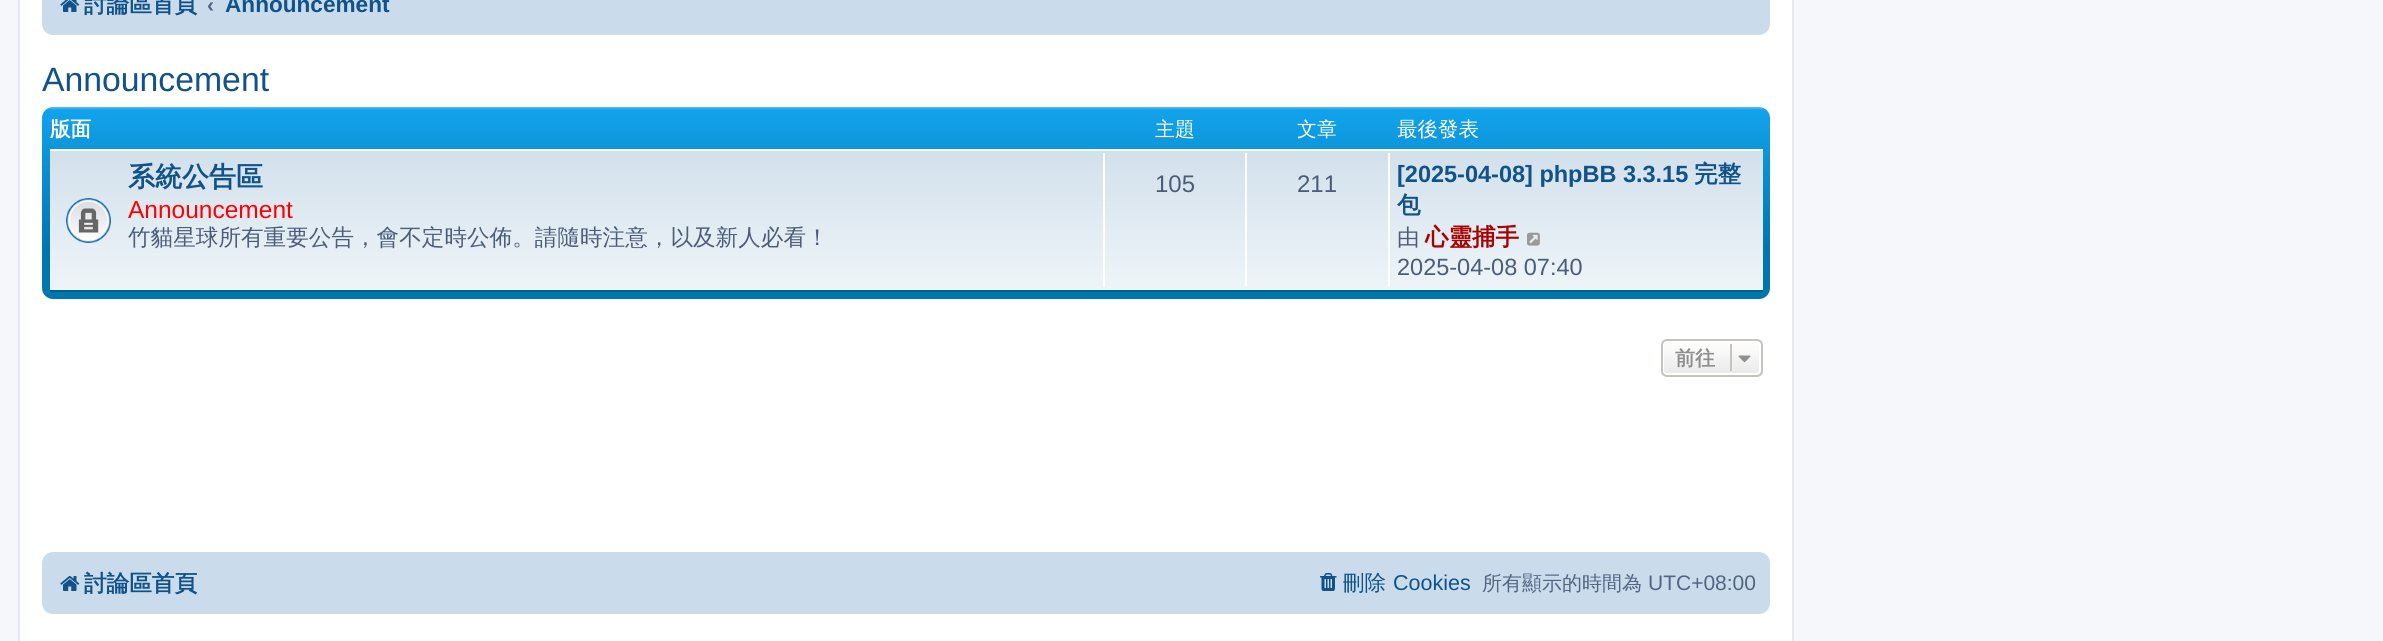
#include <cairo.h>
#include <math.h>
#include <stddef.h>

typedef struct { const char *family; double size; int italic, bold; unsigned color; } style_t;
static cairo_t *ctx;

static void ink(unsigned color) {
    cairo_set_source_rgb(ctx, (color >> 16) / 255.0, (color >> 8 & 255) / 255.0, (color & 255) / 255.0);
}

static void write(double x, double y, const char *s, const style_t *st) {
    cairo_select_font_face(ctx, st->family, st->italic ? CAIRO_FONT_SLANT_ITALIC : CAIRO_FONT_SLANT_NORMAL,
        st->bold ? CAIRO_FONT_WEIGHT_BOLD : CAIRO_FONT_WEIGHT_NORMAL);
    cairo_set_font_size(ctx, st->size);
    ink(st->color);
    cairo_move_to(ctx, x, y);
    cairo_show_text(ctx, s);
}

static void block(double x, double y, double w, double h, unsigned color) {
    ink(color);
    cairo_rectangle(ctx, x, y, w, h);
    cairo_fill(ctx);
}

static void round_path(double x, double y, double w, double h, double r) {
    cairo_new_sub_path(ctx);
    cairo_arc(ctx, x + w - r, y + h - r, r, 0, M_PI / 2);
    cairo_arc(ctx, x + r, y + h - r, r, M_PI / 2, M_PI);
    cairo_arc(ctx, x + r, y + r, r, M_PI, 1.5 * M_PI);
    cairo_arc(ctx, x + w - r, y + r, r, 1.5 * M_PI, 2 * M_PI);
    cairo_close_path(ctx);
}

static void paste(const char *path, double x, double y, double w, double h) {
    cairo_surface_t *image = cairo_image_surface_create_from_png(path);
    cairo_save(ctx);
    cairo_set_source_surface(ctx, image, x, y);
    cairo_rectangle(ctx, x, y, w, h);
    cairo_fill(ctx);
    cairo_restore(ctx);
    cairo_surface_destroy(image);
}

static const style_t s1 = {"WenQuanYi Zen Hei", 22.6, 0, 1, 0x105289};
static const style_t s2 = {"Liberation Sans", 21, 0, 1, 0x536482};
static const style_t s3 = {"Liberation Sans", 22.6, 0, 1, 0x105289};
static const style_t s4 = {"Liberation Sans", 33.75, 0, 0, 0x105289};
static const style_t s5 = {"WenQuanYi Zen Hei", 20.5, 0, 1, 0xffffff};
static const style_t s6 = {"WenQuanYi Zen Hei Medium", 20, 0, 0, 0xffffff};
static const style_t s7 = {"WenQuanYi Zen Hei Medium", 20.5, 0, 0, 0xffffff};
static const style_t s8 = {"WenQuanYi Zen Hei", 27, 0, 1, 0x105289};
static const style_t s9 = {"Liberation Sans", 24.5, 0, 0, 0xff0000};
static const style_t s10 = {"WenQuanYi Zen Hei Medium", 22.6, 0, 0, 0x4c5d77};
static const style_t s11 = {"Liberation Sans", 24, 0, 0, 0x4c5d77};
static const style_t s12 = {"Liberation Sans", 23.5, 0, 1, 0x105289};
static const style_t s13 = {"WenQuanYi Zen Hei", 23.5, 0, 1, 0x105289};
static const style_t s14 = {"WenQuanYi Zen Hei", 23.5, 0, 1, 0xaa0000};
static const style_t s15 = {"Liberation Sans", 23.5, 0, 0, 0x4c5d77};
static const style_t s16 = {"WenQuanYi Zen Hei", 20, 0, 1, 0x8f8f8f};
static const style_t s17 = {"WenQuanYi Zen Hei Medium", 21.5, 0, 0, 0x105289};
static const style_t s18 = {"Liberation Sans", 21.5, 0, 0, 0x105289};
static const style_t s19 = {"WenQuanYi Zen Hei Medium", 20, 0, 0, 0x536482};
static const style_t s20 = {"Liberation Sans", 21, 0, 0, 0x536482};

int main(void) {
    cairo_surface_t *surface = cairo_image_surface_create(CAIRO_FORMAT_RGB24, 2383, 641);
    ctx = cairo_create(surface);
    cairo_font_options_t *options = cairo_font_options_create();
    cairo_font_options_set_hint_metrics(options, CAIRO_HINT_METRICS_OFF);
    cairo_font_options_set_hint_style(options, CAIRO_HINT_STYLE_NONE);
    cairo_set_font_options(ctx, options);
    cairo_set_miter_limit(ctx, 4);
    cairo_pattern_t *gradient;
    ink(0xf5f7fa);
    cairo_paint(ctx);
    ink(0xffffff);
    cairo_rectangle(ctx, 19, -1, 1774, 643);
    cairo_fill_preserve(ctx);
    ink(0xe6e9ed);
    cairo_stroke(ctx);
    ink(0xcadceb);
    round_path(42, -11, 1728, 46, 11);
    cairo_fill(ctx);
    paste("pic1.png", 60, 0, 20, 12);
    write(84, 12, "討論區首頁", &s1);
    write(207, 12, "‹", &s2);
    write(225, 12, "Announcement", &s3);
    write(42, 91, "Announcement", &s4);
    gradient = cairo_pattern_create_linear(906, 106, 906, 299);
    cairo_pattern_add_color_stop_rgba(gradient, 0, 0.416, 0.808, 1, 1);
    cairo_pattern_add_color_stop_rgba(gradient, 0.02, 0.071, 0.639, 0.922, 1);
    cairo_pattern_add_color_stop_rgba(gradient, 0.72, 0, 0.463, 0.694, 1);
    cairo_pattern_add_color_stop_rgba(gradient, 1, 0, 0.463, 0.694, 1);
    cairo_set_source(ctx, gradient);
    cairo_pattern_destroy(gradient);
    round_path(42, 107, 1728, 192, 11);
    cairo_fill(ctx);
    write(50, 136, "版面", &s5);
    write(1155, 136, "主題", &s6);
    write(1297, 136, "文章", &s6);
    write(1397, 136, "最後發表", &s7);
    gradient = cairo_pattern_create_linear(906, 148, 906, 291);
    cairo_pattern_add_color_stop_rgba(gradient, 0, 0.824, 0.878, 0.922, 1);
    cairo_pattern_add_color_stop_rgba(gradient, 1, 0.933, 0.961, 0.976, 1);
    cairo_set_source(ctx, gradient);
    cairo_pattern_destroy(gradient);
    cairo_rectangle(ctx, 50, 151, 1713, 139);
    cairo_fill(ctx);
    block(50, 149, 1713, 2, 0xffffff);
    block(50, 290, 1713, 2, 0x00608f);
    paste("pic2.png", 66, 198, 45, 45);
    write(128, 186, "系統公告區", &s8);
    write(128, 218, "Announcement", &s9);
    write(128, 245, "竹貓星球所有重要公告，會不定時公佈。請隨時注意，以及新人必看！", &s10);
    block(1103, 153, 2, 134, 0xffffff);
    write(1155, 192, "105", &s11);
    block(1245, 153, 2, 134, 0xffffff);
    write(1297, 192, "211", &s11);
    block(1388, 153, 2, 134, 0xffffff);
    write(1397, 182, "[2025-04-08] phpBB 3.3.15", &s12);
    write(1694, 182, "完整", &s13);
    write(1397, 213, "包", &s13);
    write(1397, 245, "由", &s10);
    write(1425, 245, "心靈捕手", &s14);
    paste("pic3.png", 1527, 232, 13, 14);
    write(1397, 275, "2025-04-08 07:40", &s15);
    cairo_save(ctx);
    round_path(1661, 339, 102, 38, 6);
    cairo_clip(ctx);
    gradient = cairo_pattern_create_linear(1712, 341, 1712, 375);
    cairo_pattern_add_color_stop_rgba(gradient, 0, 1, 1, 1, 1);
    cairo_pattern_add_color_stop_rgba(gradient, 1, 0.914, 0.914, 0.914, 1);
    cairo_set_source(ctx, gradient);
    cairo_pattern_destroy(gradient);
    cairo_rectangle(ctx, 1661, 341, 102, 34);
    cairo_fill(ctx);
    cairo_restore(ctx);
    round_path(1663, 342, 97, 32, 4);
    ink(0xffffff);
    cairo_stroke(ctx);
    round_path(1662, 340, 100, 36, 5);
    ink(0xc7c3bf);
    cairo_stroke(ctx);
    write(1675, 365, "前往", &s16);
    block(1730, 344, 2, 27, 0xc7c3bf);
    paste("pic4.png", 1738, 355, 13, 8);
    ink(0xcadceb);
    round_path(42, 552, 1728, 62, 11);
    cairo_fill(ctx);
    paste("pic5.png", 60, 576, 20, 15);
    write(84, 591, "討論區首頁", &s1);
    paste("pic6.png", 1320, 573, 17, 18);
    write(1343, 590, "刪除", &s17);
    write(1393, 590, "Cookies", &s18);
    write(1482, 590, "所有顯示的時間為", &s19);
    write(1648, 590, "UTC+08:00", &s20);
    cairo_surface_write_to_png(surface, "screenshot.png");
    cairo_font_options_destroy(options);
    cairo_destroy(ctx);
    cairo_surface_destroy(surface);
    return 0;
}
